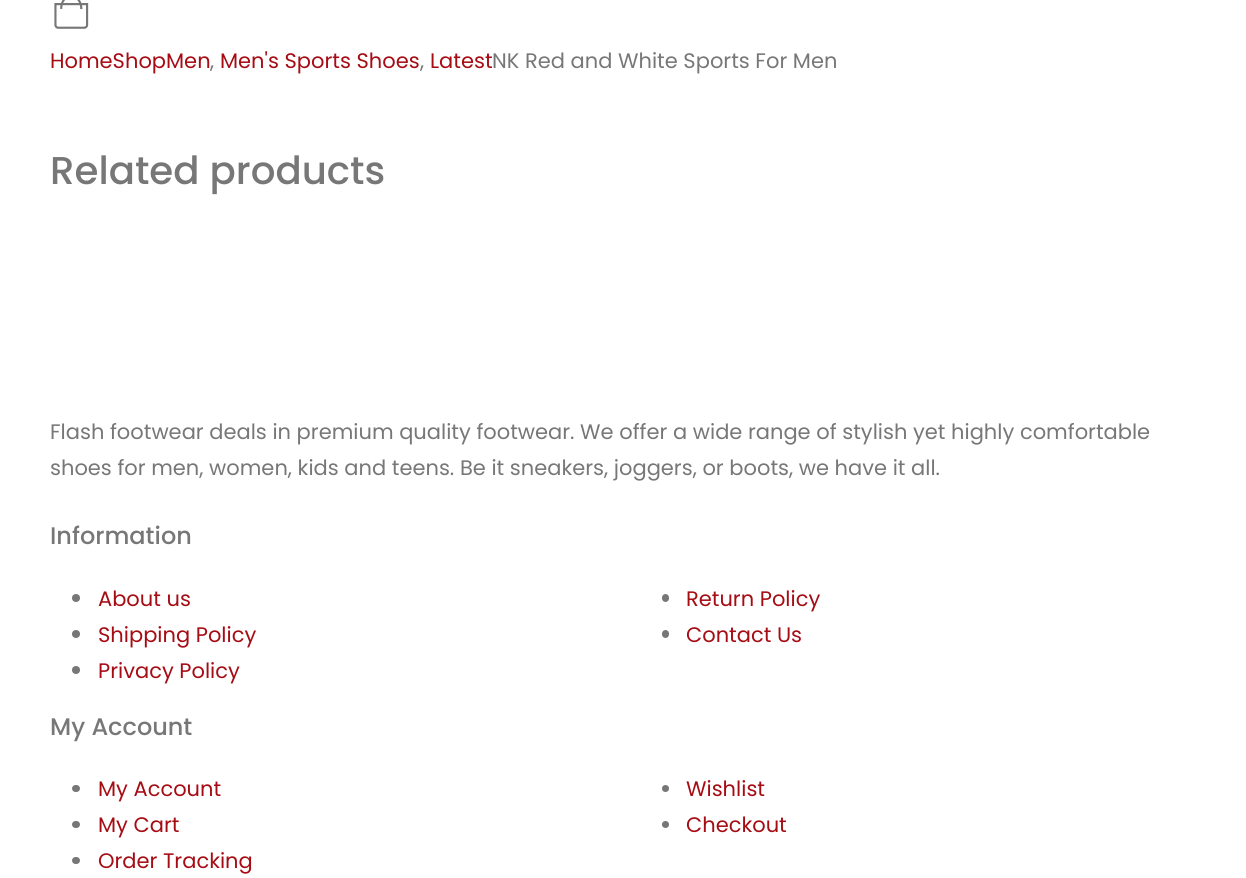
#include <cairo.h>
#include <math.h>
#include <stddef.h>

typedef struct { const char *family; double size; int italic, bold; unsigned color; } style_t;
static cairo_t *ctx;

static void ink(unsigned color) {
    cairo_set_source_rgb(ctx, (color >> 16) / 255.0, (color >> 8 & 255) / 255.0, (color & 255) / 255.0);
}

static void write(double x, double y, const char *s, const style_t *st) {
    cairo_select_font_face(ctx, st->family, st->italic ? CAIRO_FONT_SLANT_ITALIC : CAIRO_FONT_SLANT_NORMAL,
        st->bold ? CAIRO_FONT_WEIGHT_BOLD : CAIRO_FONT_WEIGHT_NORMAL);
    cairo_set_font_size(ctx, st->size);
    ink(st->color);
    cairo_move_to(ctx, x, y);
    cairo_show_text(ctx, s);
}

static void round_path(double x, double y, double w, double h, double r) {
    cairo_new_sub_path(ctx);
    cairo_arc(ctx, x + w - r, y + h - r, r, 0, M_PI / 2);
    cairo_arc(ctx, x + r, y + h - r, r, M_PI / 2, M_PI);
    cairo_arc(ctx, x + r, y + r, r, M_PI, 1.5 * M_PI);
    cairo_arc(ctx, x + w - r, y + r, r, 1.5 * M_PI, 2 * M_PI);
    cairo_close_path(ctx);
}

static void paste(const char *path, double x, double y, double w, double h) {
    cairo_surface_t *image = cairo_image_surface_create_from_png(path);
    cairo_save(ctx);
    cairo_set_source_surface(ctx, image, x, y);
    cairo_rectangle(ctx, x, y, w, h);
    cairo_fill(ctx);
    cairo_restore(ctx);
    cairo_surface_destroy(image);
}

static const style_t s1 = {"Poppins", 21, 0, 0, 0xa60c14};
static const style_t s2 = {"Poppins", 21, 0, 0, 0x777777};
static const style_t s3 = {"Poppins Medium", 38.75, 0, 0, 0x777777};
static const style_t s4 = {"Poppins Medium", 24, 0, 0, 0x777777};

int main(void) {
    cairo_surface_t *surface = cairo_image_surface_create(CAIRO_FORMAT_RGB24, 1246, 878);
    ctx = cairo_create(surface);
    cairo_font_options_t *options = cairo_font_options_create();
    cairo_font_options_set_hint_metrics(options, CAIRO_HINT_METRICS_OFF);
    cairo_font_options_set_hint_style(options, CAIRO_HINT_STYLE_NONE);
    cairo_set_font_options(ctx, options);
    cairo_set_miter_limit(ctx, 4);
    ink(0xffffff);
    cairo_paint(ctx);
    paste("pic1.png", 54, 0, 35, 29);
    write(50, 68, "HomeShopMen", &s1);
    write(210, 68, ",", &s2);
    write(220, 68, "Men's Sports Shoes", &s1);
    write(420, 68, ",", &s2);
    write(430, 68, "Latest", &s1);
    write(492, 68, "NK Red and White Sports For Men", &s2);
    write(50, 184, "Related products", &s3);
    write(50, 439, "Flash footwear deals in premium quality footwear. We offer a wide range of stylish yet highly comfortable", &s2);
    write(50, 475, "shoes for men, women, kids and teens. Be it sneakers, joggers, or boots, we have it all.", &s2);
    write(50, 544, "Information", &s4);
    cairo_new_path(ctx);
    cairo_arc(ctx, 76, 598, 4, 0, 2 * M_PI);
    cairo_fill(ctx);
    write(98, 606, "About us", &s1);
    ink(0x777777);
    cairo_new_path(ctx);
    cairo_arc(ctx, 76, 634, 4, 0, 2 * M_PI);
    cairo_fill(ctx);
    write(98, 642, "Shipping Policy", &s1);
    ink(0x777777);
    cairo_new_path(ctx);
    cairo_arc(ctx, 76, 670, 4, 0, 2 * M_PI);
    cairo_fill(ctx);
    write(98, 678, "Privacy Policy", &s1);
    ink(0x777777);
    round_path(662, 594, 7, 8, 3.5);
    cairo_fill(ctx);
    write(686, 606, "Return Policy", &s1);
    ink(0x777777);
    round_path(662, 630, 7, 8, 3.5);
    cairo_fill(ctx);
    write(686, 642, "Contact Us", &s1);
    write(50, 735, "My Account", &s4);
    round_path(72, 785, 8, 7, 3.5);
    cairo_fill(ctx);
    write(98, 796, "My Account", &s1);
    ink(0x777777);
    round_path(72, 821, 8, 7, 3.5);
    cairo_fill(ctx);
    write(98, 832, "My Cart", &s1);
    ink(0x777777);
    round_path(72, 857, 8, 7, 3.5);
    cairo_fill(ctx);
    write(98, 868, "Order Tracking", &s1);
    ink(0x777777);
    cairo_new_path(ctx);
    cairo_arc(ctx, 665.5, 788.5, 3.5, 0, 2 * M_PI);
    cairo_fill(ctx);
    write(686, 796, "Wishlist", &s1);
    ink(0x777777);
    cairo_new_path(ctx);
    cairo_arc(ctx, 665.5, 824.5, 3.5, 0, 2 * M_PI);
    cairo_fill(ctx);
    write(686, 832, "Checkout", &s1);
    cairo_surface_write_to_png(surface, "screenshot.png");
    cairo_font_options_destroy(options);
    cairo_destroy(ctx);
    cairo_surface_destroy(surface);
    return 0;
}
